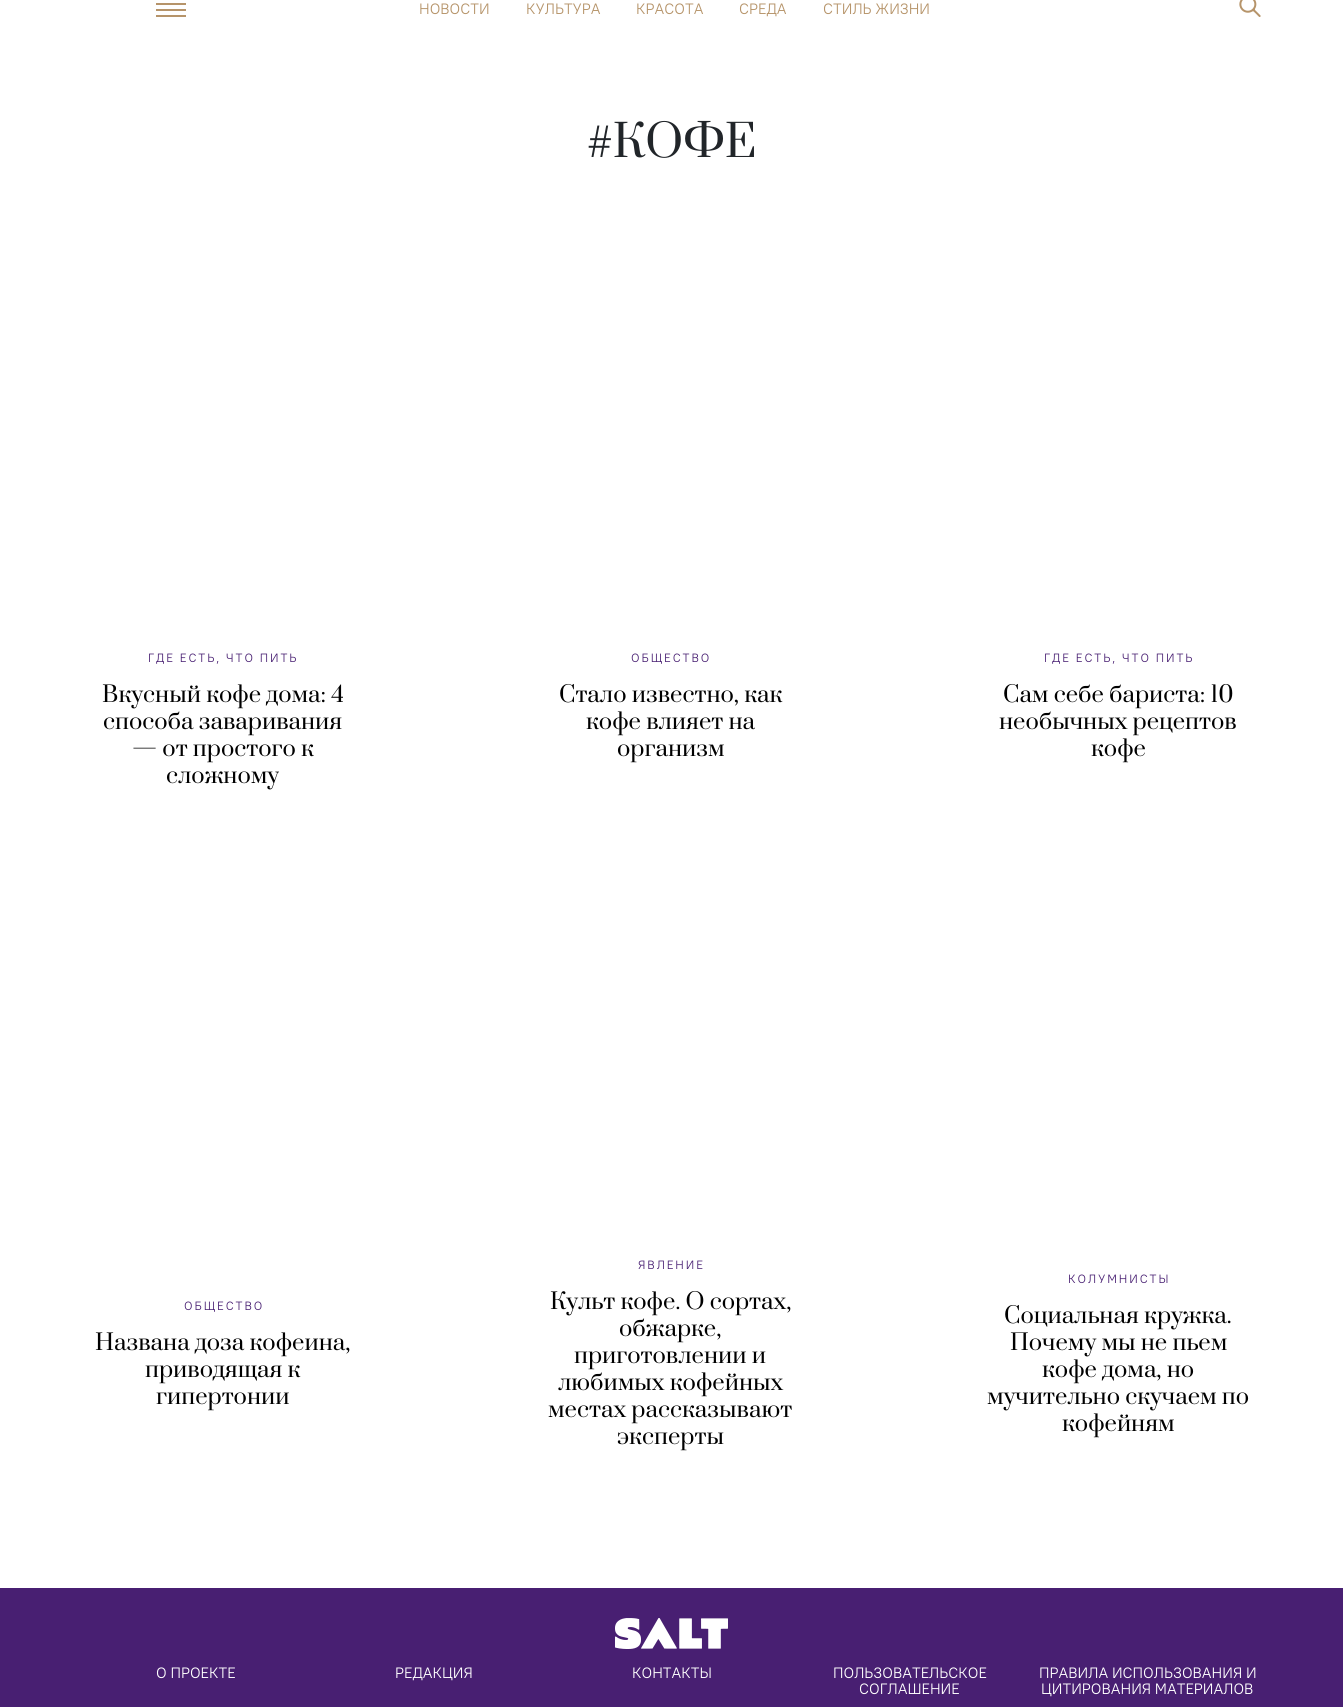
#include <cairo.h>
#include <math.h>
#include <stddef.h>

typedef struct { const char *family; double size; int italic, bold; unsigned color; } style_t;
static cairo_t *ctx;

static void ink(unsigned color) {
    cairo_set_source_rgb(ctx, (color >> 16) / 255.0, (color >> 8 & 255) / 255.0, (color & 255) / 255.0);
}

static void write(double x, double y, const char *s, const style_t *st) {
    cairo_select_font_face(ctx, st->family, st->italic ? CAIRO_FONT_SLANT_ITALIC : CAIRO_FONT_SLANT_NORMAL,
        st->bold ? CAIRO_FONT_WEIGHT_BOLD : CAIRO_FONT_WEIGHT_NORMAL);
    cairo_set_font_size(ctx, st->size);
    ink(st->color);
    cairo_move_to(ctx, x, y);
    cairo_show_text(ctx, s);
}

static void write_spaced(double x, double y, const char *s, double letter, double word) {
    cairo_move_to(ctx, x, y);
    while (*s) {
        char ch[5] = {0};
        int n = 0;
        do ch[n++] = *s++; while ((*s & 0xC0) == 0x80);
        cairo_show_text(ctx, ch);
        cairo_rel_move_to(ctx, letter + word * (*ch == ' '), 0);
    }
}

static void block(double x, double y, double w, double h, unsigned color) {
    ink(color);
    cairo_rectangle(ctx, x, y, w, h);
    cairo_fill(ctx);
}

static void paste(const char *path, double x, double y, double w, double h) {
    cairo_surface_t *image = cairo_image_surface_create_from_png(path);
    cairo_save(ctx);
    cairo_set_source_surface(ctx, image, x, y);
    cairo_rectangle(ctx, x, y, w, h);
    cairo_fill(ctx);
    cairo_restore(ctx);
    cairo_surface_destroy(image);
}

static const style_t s1 = {"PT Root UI", 15, 0, 0, 0xb6946a};
static const style_t s2 = {"Prata", 44, 0, 0, 0x212529};
static const style_t s3 = {"Prata", 22, 0, 0, 0x000000};
static const style_t s4 = {"PT Root UI", 15, 0, 0, 0xffffff};

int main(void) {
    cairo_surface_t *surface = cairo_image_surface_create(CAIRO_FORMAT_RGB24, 1343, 1707);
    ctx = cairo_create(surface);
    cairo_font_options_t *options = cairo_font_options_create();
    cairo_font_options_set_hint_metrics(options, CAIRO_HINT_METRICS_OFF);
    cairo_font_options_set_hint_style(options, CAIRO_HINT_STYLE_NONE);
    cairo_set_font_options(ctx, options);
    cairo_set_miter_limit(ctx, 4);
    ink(0xffffff);
    cairo_paint(ctx);
    block(156, 3, 30, 2, 0xb6946a);
    block(156, 9, 30, 2, 0xb6946a);
    block(156, 15, 30, 2, 0xb6946a);
    paste("pic1.png", 1239, 0, 22, 17);
    write(419, 14, "НОВОСТИ", &s1);
    write(526, 14, "КУЛЬТУРА", &s1);
    write(636, 14, "КРАСОТА", &s1);
    write(739, 14, "СРЕДА", &s1);
    write(823, 14, "СТИЛЬ ЖИЗНИ", &s1);
    write(587, 157, "#КОФЕ", &s2);
    cairo_select_font_face(ctx, "PT Root UI", CAIRO_FONT_SLANT_NORMAL, CAIRO_FONT_WEIGHT_NORMAL);
    cairo_set_font_size(ctx, 12);
    ink(0x481f72);
    write_spaced(148, 662, "ГДЕ ЕСТЬ, ЧТО ПИТЬ", 1.9, 0);
    write(102, 702, "Вкусный кофе дома: 4", &s3);
    write(103, 729, "способа заваривания", &s3);
    write(132, 756, "— от простого к", &s3);
    write(166, 783, "сложному", &s3);
    cairo_select_font_face(ctx, "PT Root UI", CAIRO_FONT_SLANT_NORMAL, CAIRO_FONT_WEIGHT_NORMAL);
    cairo_set_font_size(ctx, 12);
    ink(0x481f72);
    write_spaced(631, 662, "ОБЩЕСТВО", 1.9, 0);
    write(559, 702, "Стало известно, как", &s3);
    write(586, 729, "кофе влияет на", &s3);
    write(617, 756, "организм", &s3);
    cairo_select_font_face(ctx, "PT Root UI", CAIRO_FONT_SLANT_NORMAL, CAIRO_FONT_WEIGHT_NORMAL);
    cairo_set_font_size(ctx, 12);
    ink(0x481f72);
    write_spaced(1044, 662, "ГДЕ ЕСТЬ, ЧТО ПИТЬ", 1.9, 0);
    write(1003, 702, "Сам себе бариста: 10", &s3);
    write(999, 729, "необычных рецептов", &s3);
    write(1091, 756, "кофе", &s3);
    cairo_select_font_face(ctx, "PT Root UI", CAIRO_FONT_SLANT_NORMAL, CAIRO_FONT_WEIGHT_NORMAL);
    cairo_set_font_size(ctx, 12);
    ink(0x481f72);
    write_spaced(184, 1310, "ОБЩЕСТВО", 1.9, 0);
    write(95, 1350, "Названа доза кофеина,", &s3);
    write(145, 1377, "приводящая к", &s3);
    write(156, 1404, "гипертонии", &s3);
    cairo_select_font_face(ctx, "PT Root UI", CAIRO_FONT_SLANT_NORMAL, CAIRO_FONT_WEIGHT_NORMAL);
    cairo_set_font_size(ctx, 12);
    ink(0x481f72);
    write_spaced(638, 1269, "ЯВЛЕНИЕ", 1.9, 0);
    write(550, 1309, "Культ кофе. О сортах,", &s3);
    write(619, 1336, "обжарке,", &s3);
    write(574, 1363, "приготовлении и", &s3);
    write(558, 1390, "любимых кофейных", &s3);
    write(548, 1417, "местах рассказывают", &s3);
    write(617, 1444, "эксперты", &s3);
    cairo_select_font_face(ctx, "PT Root UI", CAIRO_FONT_SLANT_NORMAL, CAIRO_FONT_WEIGHT_NORMAL);
    cairo_set_font_size(ctx, 12);
    ink(0x481f72);
    write_spaced(1068, 1283, "КОЛУМНИСТЫ", 1.9, 0);
    write(1004, 1323, "Социальная кружка.", &s3);
    write(1010, 1350, "Почему мы не пьем", &s3);
    write(1042, 1377, "кофе дома, но", &s3);
    write(987, 1404, "мучительно скучаем по", &s3);
    write(1062, 1431, "кофейням", &s3);
    block(0, 1588, 1343, 119, 0x481f72);
    paste("pic2.png", 615, 1618, 113, 31);
    write(156, 1678, "О ПРОЕКТЕ", &s4);
    write(395, 1678, "РЕДАКЦИЯ", &s4);
    write(632, 1678, "КОНТАКТЫ", &s4);
    write(833, 1678, "ПОЛЬЗОВАТЕЛЬСКОЕ", &s4);
    write(859, 1694, "СОГЛАШЕНИЕ", &s4);
    write(1039, 1678, "ПРАВИЛА ИСПОЛЬЗОВАНИЯ И", &s4);
    write(1041, 1694, "ЦИТИРОВАНИЯ МАТЕРИАЛОВ", &s4);
    cairo_surface_write_to_png(surface, "screenshot.png");
    cairo_font_options_destroy(options);
    cairo_destroy(ctx);
    cairo_surface_destroy(surface);
    return 0;
}
